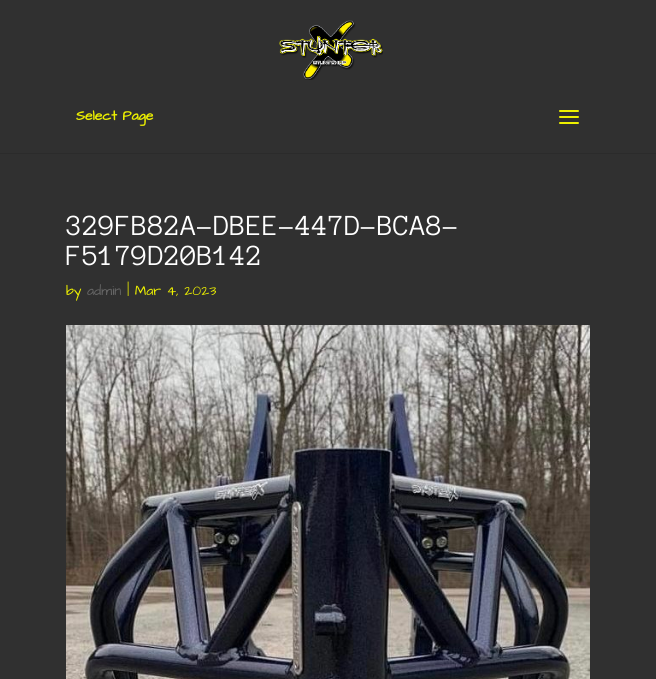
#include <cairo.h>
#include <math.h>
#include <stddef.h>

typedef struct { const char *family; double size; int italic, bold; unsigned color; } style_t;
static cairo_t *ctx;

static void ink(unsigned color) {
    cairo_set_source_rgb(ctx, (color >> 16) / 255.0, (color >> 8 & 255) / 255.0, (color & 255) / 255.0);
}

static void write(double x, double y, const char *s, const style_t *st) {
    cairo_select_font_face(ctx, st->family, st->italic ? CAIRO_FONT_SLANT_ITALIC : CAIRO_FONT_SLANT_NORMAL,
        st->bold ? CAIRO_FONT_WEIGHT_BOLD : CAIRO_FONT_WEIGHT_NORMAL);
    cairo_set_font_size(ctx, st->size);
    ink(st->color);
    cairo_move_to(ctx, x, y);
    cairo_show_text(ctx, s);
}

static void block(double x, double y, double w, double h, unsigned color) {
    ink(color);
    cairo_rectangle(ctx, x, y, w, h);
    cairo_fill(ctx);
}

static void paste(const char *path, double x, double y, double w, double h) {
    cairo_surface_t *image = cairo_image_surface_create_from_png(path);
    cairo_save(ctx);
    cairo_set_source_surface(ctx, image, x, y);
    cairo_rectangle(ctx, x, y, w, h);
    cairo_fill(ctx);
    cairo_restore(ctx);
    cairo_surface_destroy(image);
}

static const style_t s1 = {"Architects Daughter", 14, 0, 1, 0xedf000};
static const style_t s2 = {"Anonymous Pro", 30, 0, 0, 0xffffff};
static const style_t s3 = {"Architects Daughter", 14, 0, 0, 0xedf000};
static const style_t s4 = {"Architects Daughter", 14, 0, 0, 0x666666};

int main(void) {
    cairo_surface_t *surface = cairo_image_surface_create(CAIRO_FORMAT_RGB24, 656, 679);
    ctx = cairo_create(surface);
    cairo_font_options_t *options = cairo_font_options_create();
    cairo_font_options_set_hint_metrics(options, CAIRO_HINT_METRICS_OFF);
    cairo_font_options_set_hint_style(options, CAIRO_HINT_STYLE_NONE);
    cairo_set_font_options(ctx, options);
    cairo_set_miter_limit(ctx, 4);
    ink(0x303030);
    cairo_paint(ctx);
    block(0, 153, 656, 1, 0x2b2b2b);
    paste("pic1.png", 279, 20, 104, 60);
    write(76, 120, "Select Page", &s1);
    paste("pic2.png", 559, 110, 20, 14);
    write(66, 235, "329FB82A-DBEE-447D-BCA8-", &s2);
    write(66, 265, "F5179D20B142", &s2);
    write(66, 295, "by", &s3);
    write(87, 295, "admin", &s4);
    write(127, 295, "| Mar 4, 2023", &s3);
    paste("pic3.png", 66, 325, 524, 354);
    cairo_surface_write_to_png(surface, "screenshot.png");
    cairo_font_options_destroy(options);
    cairo_destroy(ctx);
    cairo_surface_destroy(surface);
    return 0;
}
